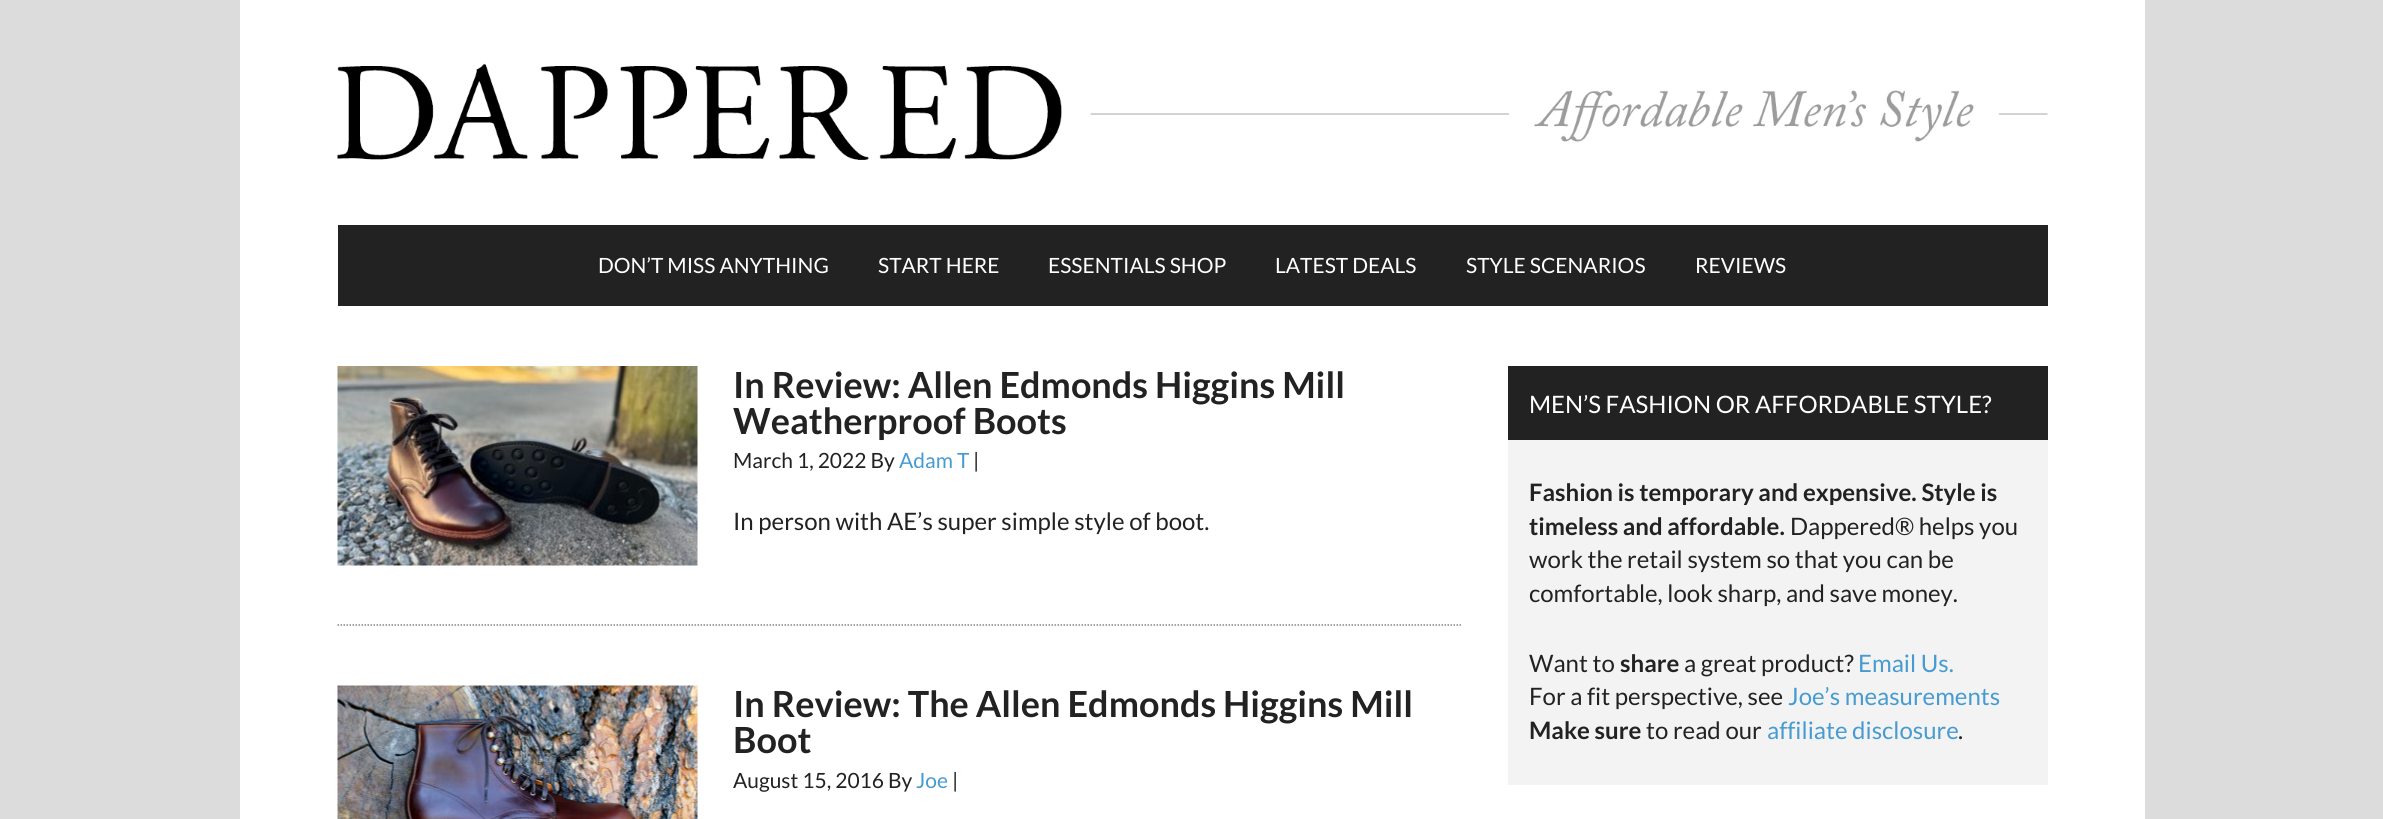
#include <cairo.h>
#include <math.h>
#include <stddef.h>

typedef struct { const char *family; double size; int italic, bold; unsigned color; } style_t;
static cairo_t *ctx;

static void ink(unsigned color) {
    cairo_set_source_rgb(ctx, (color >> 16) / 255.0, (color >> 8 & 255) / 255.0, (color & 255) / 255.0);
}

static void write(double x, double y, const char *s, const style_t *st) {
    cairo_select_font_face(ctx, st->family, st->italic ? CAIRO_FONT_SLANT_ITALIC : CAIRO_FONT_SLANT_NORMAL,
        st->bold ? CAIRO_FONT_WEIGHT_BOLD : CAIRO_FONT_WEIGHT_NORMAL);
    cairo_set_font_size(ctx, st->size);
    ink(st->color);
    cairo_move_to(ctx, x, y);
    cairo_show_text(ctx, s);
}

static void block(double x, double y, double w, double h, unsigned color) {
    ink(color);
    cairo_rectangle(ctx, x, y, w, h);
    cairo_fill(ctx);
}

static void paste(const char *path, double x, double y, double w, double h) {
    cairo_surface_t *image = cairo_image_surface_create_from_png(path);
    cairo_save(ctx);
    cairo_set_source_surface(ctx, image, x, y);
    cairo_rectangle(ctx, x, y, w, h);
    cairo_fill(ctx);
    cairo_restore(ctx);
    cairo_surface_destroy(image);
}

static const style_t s1 = {"Lato", 21, 0, 0, 0xffffff};
static const style_t s2 = {"Lato", 36, 0, 1, 0x222222};
static const style_t s3 = {"Lato", 21, 0, 0, 0x222222};
static const style_t s4 = {"Lato", 21, 0, 0, 0x469bd1};
static const style_t s5 = {"Lato", 24, 0, 0, 0x222222};
static const style_t s6 = {"Lato", 24, 0, 0, 0xffffff};
static const style_t s7 = {"Lato", 24, 0, 1, 0x222222};
static const style_t s8 = {"Lato", 24, 0, 0, 0x469bd1};

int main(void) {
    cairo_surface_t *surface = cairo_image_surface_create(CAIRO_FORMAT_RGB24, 2383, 819);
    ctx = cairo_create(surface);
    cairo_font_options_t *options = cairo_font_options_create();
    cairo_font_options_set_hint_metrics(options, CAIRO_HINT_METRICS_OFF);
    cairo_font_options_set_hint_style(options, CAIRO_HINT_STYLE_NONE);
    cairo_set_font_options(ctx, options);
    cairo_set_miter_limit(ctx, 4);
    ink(0xdcdcdc);
    cairo_paint(ctx);
    block(240, 0, 1905, 819, 0xffffff);
    paste("pic1.png", 337, 63, 1711, 97);
    block(338, 225, 1710, 81, 0x222222);
    write(598, 273, "DON’T MISS ANYTHING", &s1);
    write(878, 273, "START HERE", &s1);
    write(1048, 273, "ESSENTIALS SHOP", &s1);
    write(1275, 273, "LATEST DEALS", &s1);
    write(1466, 273, "STYLE SCENARIOS", &s1);
    write(1695, 273, "REVIEWS", &s1);
    cairo_new_path(ctx);
    cairo_move_to(ctx, 337.5, 625);
    cairo_line_to(ctx, 1462.5, 625);
    ink(0x888888);
    cairo_set_line_width(ctx, 1.5);
    cairo_set_dash(ctx, (double[]){1.5, 1.5}, 2, 0);
    cairo_stroke(ctx);
    paste("pic2.png", 337, 366, 361, 200);
    write(733, 398, "In Review: Allen Edmonds Higgins Mill", &s2);
    write(733, 434, "Weatherproof Boots", &s2);
    write(733, 468, "March 1, 2022 By", &s3);
    write(899, 468, "Adam T", &s4);
    write(973, 468, "|", &s3);
    write(733, 530, "In person with AE’s super simple style of boot.", &s5);
    paste("pic3.png", 337, 685, 361, 134);
    write(733, 717, "In Review: The Allen Edmonds Higgins Mill", &s2);
    write(733, 753, "Boot", &s2);
    write(733, 788, "August 15, 2016 By", &s3);
    write(916, 788, "Joe", &s4);
    write(952, 788, "|", &s3);
    block(1508, 440, 540, 345, 0xf3f3f3);
    block(1508, 366, 540, 74, 0x222222);
    write(1529, 413, "MEN’S FASHION OR AFFORDABLE STYLE?", &s6);
    write(1529, 501, "Fashion is temporary and expensive. Style is", &s7);
    write(1529, 535, "timeless and affordable.", &s7);
    write(1790, 535, "Dappered® helps you", &s5);
    write(1529, 568, "work the retail system so that you can be", &s5);
    write(1529, 602, "comfortable, look sharp, and save money.", &s5);
    write(1529, 672, "Want to", &s5);
    write(1620, 672, "share", &s7);
    write(1684, 672, "a great product?", &s5);
    write(1858, 672, "Email Us.", &s8);
    write(1529, 705, "For a fit perspective, see", &s5);
    write(1788, 705, "Joe’s measurements", &s8);
    write(1529, 739, "Make sure", &s7);
    write(1646, 739, "to read our", &s5);
    write(1767, 739, "affiliate disclosure", &s8);
    write(1958, 739, ".", &s5);
    cairo_surface_write_to_png(surface, "screenshot.png");
    cairo_font_options_destroy(options);
    cairo_destroy(ctx);
    cairo_surface_destroy(surface);
    return 0;
}
